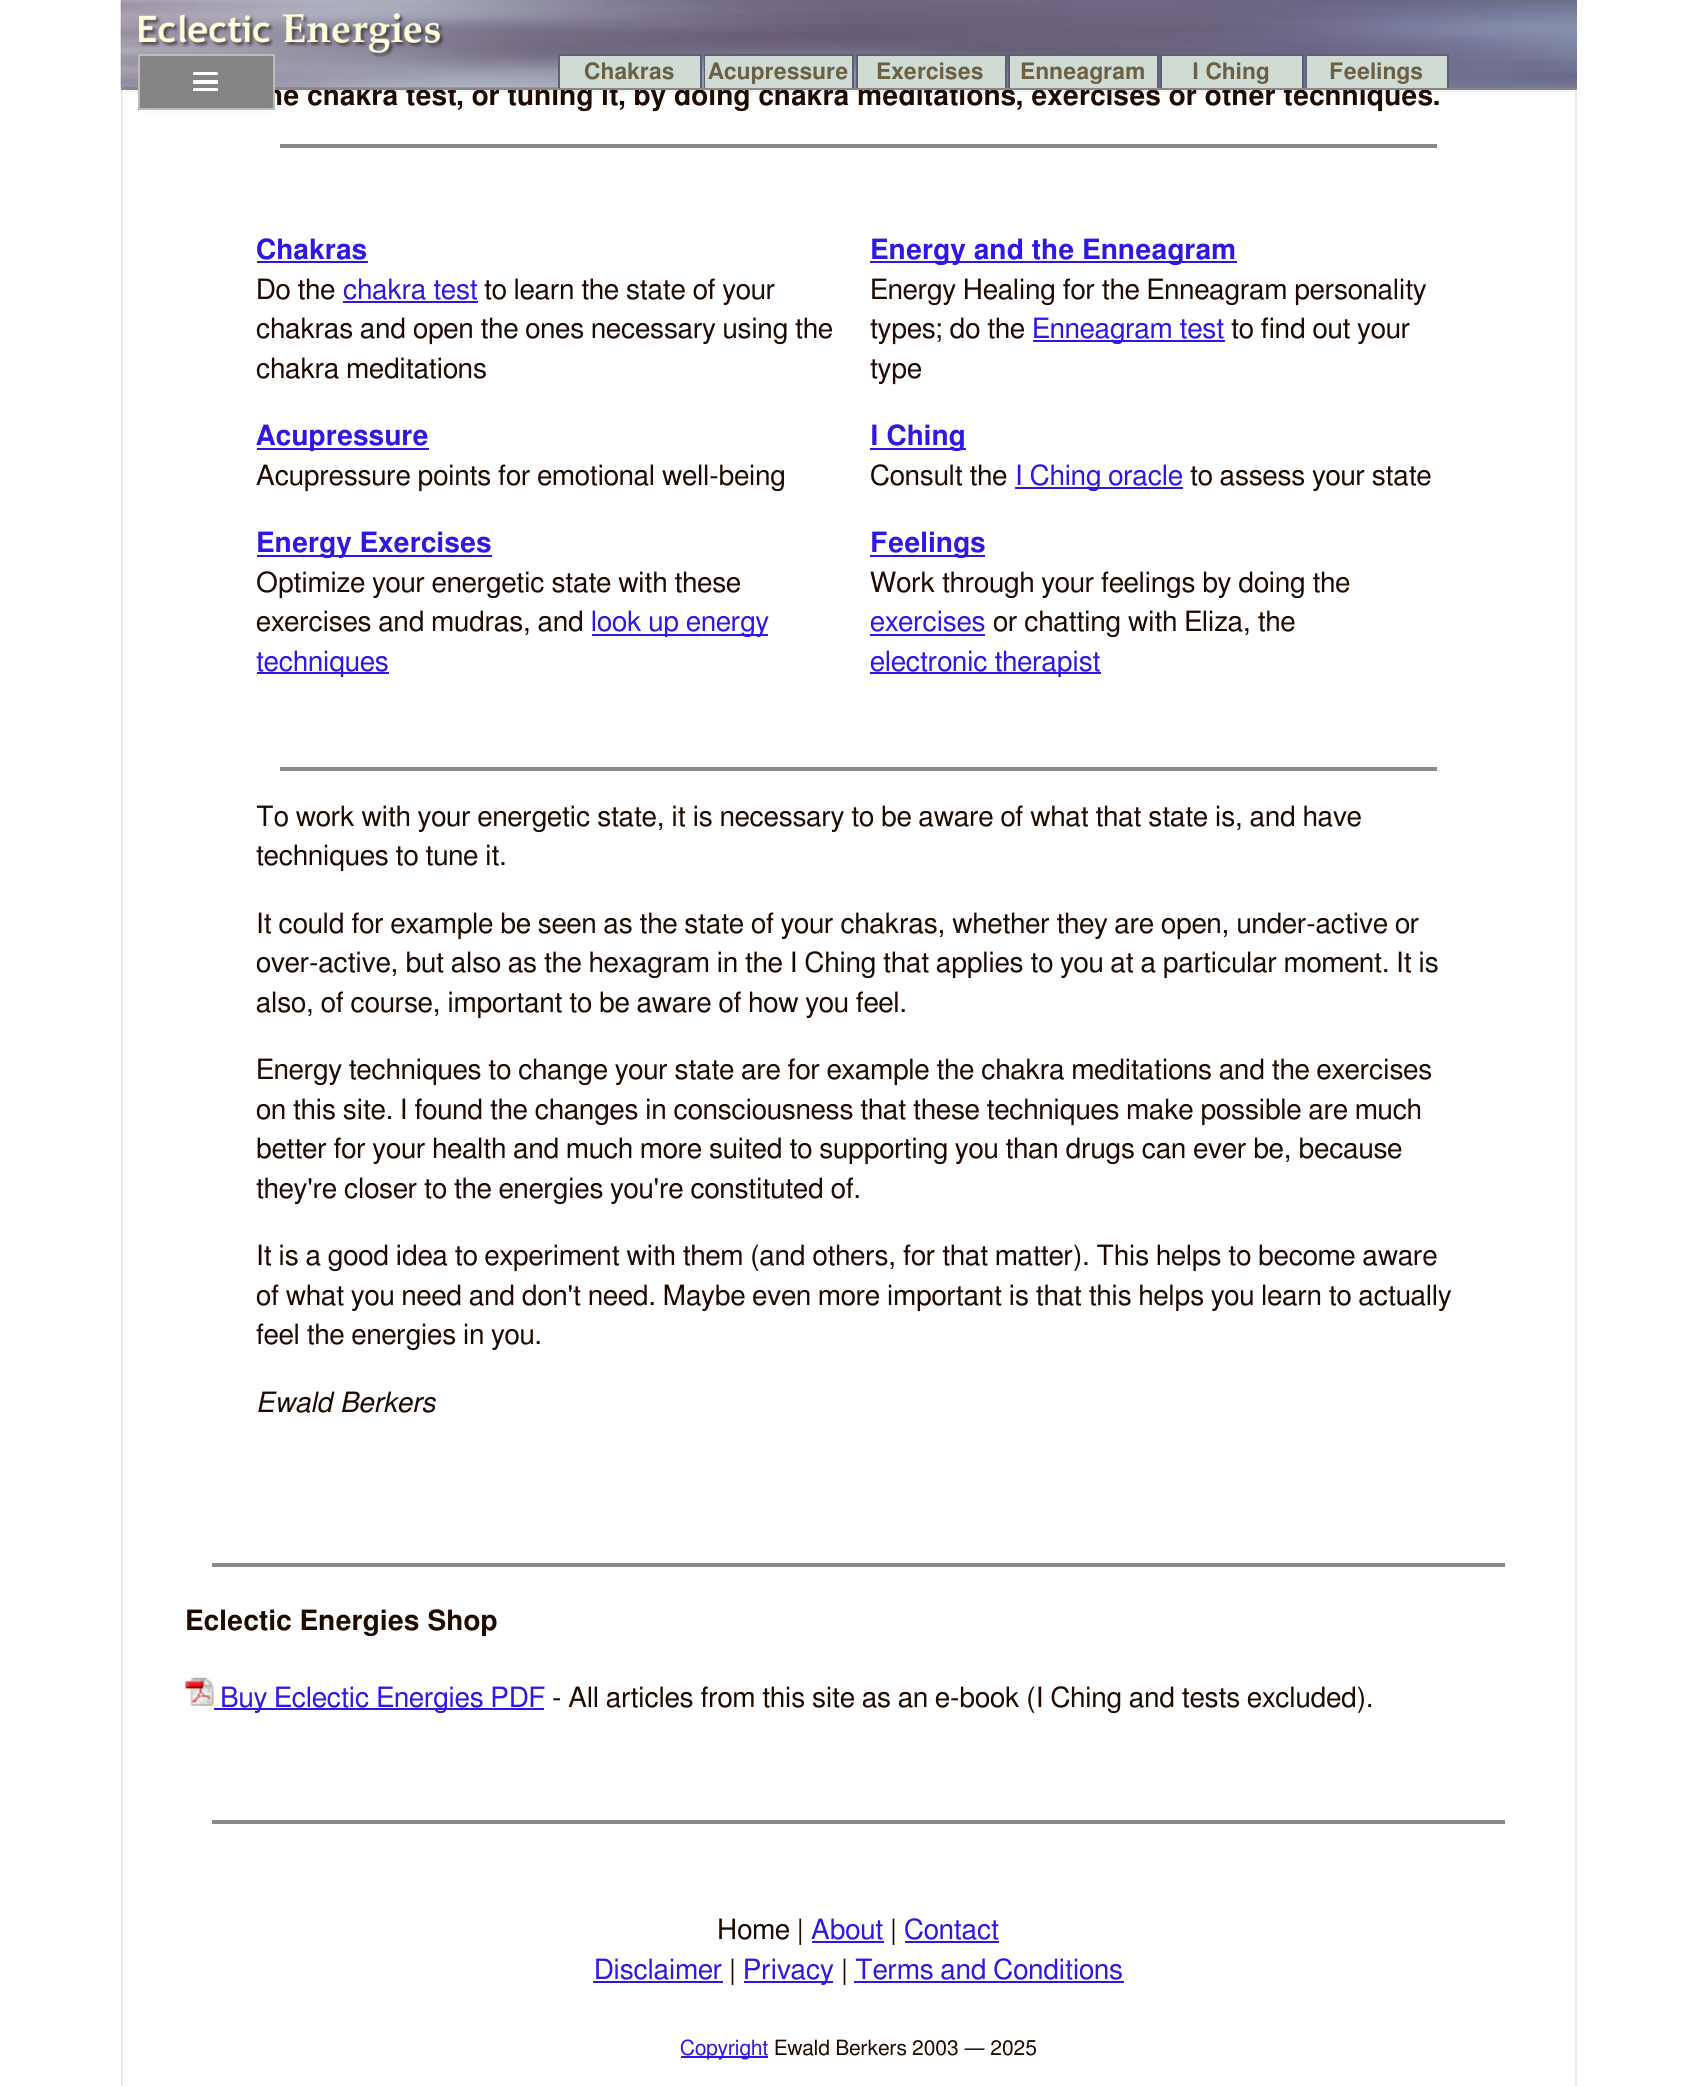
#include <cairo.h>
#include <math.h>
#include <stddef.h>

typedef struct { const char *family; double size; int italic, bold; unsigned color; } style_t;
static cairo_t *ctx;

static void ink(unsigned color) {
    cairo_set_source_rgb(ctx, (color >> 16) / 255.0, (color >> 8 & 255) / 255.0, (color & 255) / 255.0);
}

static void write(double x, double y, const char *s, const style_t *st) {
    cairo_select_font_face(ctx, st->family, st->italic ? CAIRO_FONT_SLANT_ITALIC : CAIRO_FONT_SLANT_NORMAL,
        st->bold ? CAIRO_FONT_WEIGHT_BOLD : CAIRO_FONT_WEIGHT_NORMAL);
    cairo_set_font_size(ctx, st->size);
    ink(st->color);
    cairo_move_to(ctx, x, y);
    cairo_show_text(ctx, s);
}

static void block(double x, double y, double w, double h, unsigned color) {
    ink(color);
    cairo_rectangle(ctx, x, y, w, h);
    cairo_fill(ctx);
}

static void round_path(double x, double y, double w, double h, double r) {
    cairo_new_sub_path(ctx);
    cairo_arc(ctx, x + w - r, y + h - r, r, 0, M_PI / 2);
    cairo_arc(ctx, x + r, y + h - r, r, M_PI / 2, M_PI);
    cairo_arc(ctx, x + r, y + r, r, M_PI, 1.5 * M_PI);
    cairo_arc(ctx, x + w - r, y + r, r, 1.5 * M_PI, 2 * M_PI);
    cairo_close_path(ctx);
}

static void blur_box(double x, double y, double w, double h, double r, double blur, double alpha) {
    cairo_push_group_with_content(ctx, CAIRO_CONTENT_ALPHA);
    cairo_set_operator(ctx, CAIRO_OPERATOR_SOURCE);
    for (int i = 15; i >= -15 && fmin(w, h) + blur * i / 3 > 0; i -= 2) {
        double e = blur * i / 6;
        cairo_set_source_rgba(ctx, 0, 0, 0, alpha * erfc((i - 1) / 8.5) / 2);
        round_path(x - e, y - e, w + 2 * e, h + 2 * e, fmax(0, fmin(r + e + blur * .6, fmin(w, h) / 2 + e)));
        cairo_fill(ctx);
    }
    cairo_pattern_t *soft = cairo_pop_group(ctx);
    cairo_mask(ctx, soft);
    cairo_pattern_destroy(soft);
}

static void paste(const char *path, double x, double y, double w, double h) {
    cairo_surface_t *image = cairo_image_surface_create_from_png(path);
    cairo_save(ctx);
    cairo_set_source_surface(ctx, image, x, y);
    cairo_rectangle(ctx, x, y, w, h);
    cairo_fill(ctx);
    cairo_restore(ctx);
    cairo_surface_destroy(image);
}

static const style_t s1 = {"FreeSans SemiBold", 28, 0, 0, 0x1e0a00};
static const style_t s2 = {"FreeSans SemiBold", 22.75, 0, 0, 0x6b6044};
static const style_t s3 = {"FreeSans SemiBold", 28, 0, 0, 0x2f17e5};
static const style_t s4 = {"FreeSans", 28, 0, 0, 0x1e0a00};
static const style_t s5 = {"FreeSans", 28, 0, 0, 0x2f17e5};
static const style_t s6 = {"FreeSans", 28, 1, 0, 0x1e0a00};
static const style_t s7 = {"FreeSans", 21, 0, 0, 0x2f17e5};
static const style_t s8 = {"FreeSans", 21, 0, 0, 0x1e0a00};

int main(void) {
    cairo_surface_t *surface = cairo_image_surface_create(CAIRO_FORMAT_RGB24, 1695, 2086);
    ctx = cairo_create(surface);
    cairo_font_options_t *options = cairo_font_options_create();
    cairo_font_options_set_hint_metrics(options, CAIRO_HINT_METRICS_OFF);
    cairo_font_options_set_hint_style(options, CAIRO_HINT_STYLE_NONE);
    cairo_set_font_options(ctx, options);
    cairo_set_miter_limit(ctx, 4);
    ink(0xffffff);
    cairo_paint(ctx);
    block(1575, 90, 2, 1996, 0xebebed);
    block(121, 90, 2, 1996, 0xebebed);
    ink(0x404040);
    blur_box(126, 12, 1446, 79, 0, 3.5, 0.12);
    write(266, 105, "he chakra test, or tuning it, by doing chakra meditations, exercises or other techniques.", &s1);
    block(121, 0, 1456, 88, 0x737898);
    paste("pic1.png", 120, 0, 1457, 88);
    block(121, 88, 1456, 2, 0x888888);
    paste("pic2.png", 139, 13, 306, 45);
    ink(0x404040);
    blur_box(144, 67, 126, 45, 0, 3.5, 0.06);
    ink(0x848484);
    cairo_rectangle(ctx, 139, 55, 135, 54);
    cairo_fill_preserve(ctx);
    ink(0xbbbbbb);
    cairo_stroke(ctx);
    ink(0xffffff);
    round_path(193, 72, 25, 3, 1);
    cairo_fill(ctx);
    round_path(193, 80, 25, 4, 1);
    cairo_fill(ctx);
    cairo_new_path(ctx);
    cairo_move_to(ctx, 194, 88);
    cairo_line_to(ctx, 217, 88);
    cairo_curve_to(ctx, 217.5, 88, 218, 88.5, 218, 89);
    cairo_line_to(ctx, 218, 91);
    cairo_line_to(ctx, 193, 91);
    cairo_line_to(ctx, 193, 89);
    cairo_curve_to(ctx, 193, 88.5, 193.5, 88, 194, 88);
    cairo_close_path(ctx);
    cairo_fill(ctx);
    block(558, 54, 144, 2, 0x5e6077);
    block(700, 54, 2, 34, 0x5e6077);
    block(558, 54, 2, 34, 0x5e6077);
    block(560, 56, 140, 32, 0xd0dbd3);
    write(584, 79, "Chakras", &s2);
    block(704, 54, 150, 2, 0x5e6077);
    block(852, 54, 2, 34, 0x5e6077);
    block(704, 54, 2, 34, 0x5e6077);
    block(705, 56, 147, 32, 0xd0dbd3);
    write(708, 79, "Acupressure", &s2);
    block(856, 54, 150, 2, 0x5e6077);
    block(1005, 54, 2, 34, 0x5e6077);
    block(856, 54, 2, 34, 0x5e6077);
    block(858, 56, 147, 32, 0xd0dbd3);
    write(876, 79, "Exercises", &s2);
    block(1008, 54, 151, 2, 0x5e6077);
    block(1157, 54, 2, 34, 0x5e6077);
    block(1008, 54, 2, 34, 0x5e6077);
    block(1010, 56, 147, 32, 0xd0dbd3);
    write(1020, 79, "Enneagram", &s2);
    block(1160, 54, 144, 2, 0x5e6077);
    block(1302, 54, 2, 34, 0x5e6077);
    block(1160, 54, 2, 34, 0x5e6077);
    block(1162, 56, 140, 32, 0xd0dbd3);
    write(1192, 79, "I Ching", &s2);
    block(1306, 54, 143, 2, 0x5e6077);
    block(1447, 54, 2, 34, 0x5e6077);
    block(1306, 54, 2, 34, 0x5e6077);
    block(1307, 56, 140, 32, 0xd0dbd3);
    write(1329, 79, "Feelings", &s2);
    block(280, 144, 1157, 4, 0x8b8988);
    write(256, 259, "Chakras", &s3);
    block(257, 261, 111, 2, 0x2f17e5);
    write(256, 299, "Do the", &s4);
    write(343, 299, "chakra test", &s5);
    block(343, 301, 135, 2, 0x2f17e5);
    write(484, 299, "to learn the state of your", &s4);
    write(256, 338, "chakras and open the ones necessary using the", &s4);
    write(256, 378, "chakra meditations", &s4);
    block(257, 448, 172, 2, 0x2f17e5);
    write(256, 445, "Acupressure", &s3);
    write(256, 485, "Acupressure points for emotional well-being", &s4);
    block(257, 555, 235, 2, 0x2f17e5);
    write(256, 552, "Energy Exercises", &s3);
    write(256, 592, "Optimize your energetic state with these", &s4);
    write(256, 631, "exercises and mudras, and", &s4);
    block(592, 634, 176, 2, 0x2f17e5);
    write(591, 631, "look up energy", &s5);
    block(257, 672, 132, 2, 0x2f17e5);
    write(256, 671, "techniques", &s5);
    block(870, 261, 367, 2, 0x2f17e5);
    write(870, 259, "Energy and the Enneagram", &s3);
    write(870, 299, "Energy Healing for the Enneagram personality", &s4);
    write(870, 338, "types; do the", &s4);
    block(1033, 340, 192, 2, 0x2f17e5);
    write(1032, 338, "Enneagram test", &s5);
    write(1231, 338, "to find out your", &s4);
    write(870, 378, "type", &s4);
    block(870, 448, 96, 2, 0x2f17e5);
    write(870, 445, "I Ching", &s3);
    write(870, 485, "Consult the", &s4);
    block(1015, 487, 168, 2, 0x2f17e5);
    write(1015, 485, "I Ching oracle", &s5);
    write(1190, 485, "to assess your state", &s4);
    block(870, 555, 115, 2, 0x2f17e5);
    write(870, 552, "Feelings", &s3);
    write(870, 592, "Work through your feelings by doing the", &s4);
    write(870, 631, "exercises", &s5);
    block(870, 634, 115, 2, 0x2f17e5);
    write(993, 631, "or chatting with Eliza, the", &s4);
    block(870, 672, 231, 2, 0x2f17e5);
    write(870, 671, "electronic therapist", &s5);
    block(280, 767, 1157, 4, 0x8b8988);
    write(256, 826, "To work with your energetic state, it is necessary to be aware of what that state is, and have", &s4);
    write(256, 865, "techniques to tune it.", &s4);
    write(256, 933, "It could for example be seen as the state of your chakras, whether they are open, under-active or", &s4);
    write(256, 972, "over-active, but also as the hexagram in the I Ching that applies to you at a particular moment. It is", &s4);
    write(256, 1012, "also, of course, important to be aware of how you feel.", &s4);
    write(256, 1079, "Energy techniques to change your state are for example the chakra meditations and the exercises", &s4);
    write(256, 1119, "on this site. I found the changes in consciousness that these techniques make possible are much", &s4);
    write(256, 1158, "better for your health and much more suited to supporting you than drugs can ever be, because", &s4);
    write(256, 1198, "they're closer to the energies you're constituted of.", &s4);
    write(256, 1265, "It is a good idea to experiment with them (and others, for that matter). This helps to become aware", &s4);
    write(256, 1305, "of what you need and don't need. Maybe even more important is that this helps you learn to actually", &s4);
    write(256, 1344, "feel the energies in you.", &s4);
    write(256, 1412, "Ewald Berkers", &s6);
    block(212, 1563, 1293, 4, 0x8b8988);
    write(185, 1630, "Eclectic Energies Shop", &s1);
    paste("pic3.png", 185, 1677, 29, 29);
    block(214, 1708, 330, 2, 0x2f17e5);
    write(220, 1707, "Buy Eclectic Energies PDF", &s5);
    write(552, 1707, "- All articles from this site as an e-book (I Ching and tests excluded).", &s4);
    block(212, 1820, 1293, 4, 0x8b8988);
    write(717, 1939, "Home |", &s4);
    write(811, 1939, "About", &s5);
    block(812, 1941, 72, 2, 0x2f17e5);
    write(890, 1939, "|", &s4);
    write(904, 1939, "Contact", &s5);
    block(905, 1941, 94, 2, 0x2f17e5);
    write(594, 1979, "Disclaimer", &s5);
    block(593, 1981, 130, 2, 0x2f17e5);
    write(729, 1979, "|", &s4);
    block(744, 1981, 89, 2, 0x2f17e5);
    write(743, 1979, "Privacy", &s5);
    write(841, 1979, "|", &s4);
    write(855, 1979, "Terms and Conditions", &s5);
    block(854, 1981, 270, 2, 0x2f17e5);
    block(681, 2056, 87, 2, 0x2f17e5);
    write(680, 2055, "Copyright", &s7);
    write(774, 2055, "Ewald Berkers 2003 — 2025", &s8);
    cairo_surface_write_to_png(surface, "screenshot.png");
    cairo_font_options_destroy(options);
    cairo_destroy(ctx);
    cairo_surface_destroy(surface);
    return 0;
}
